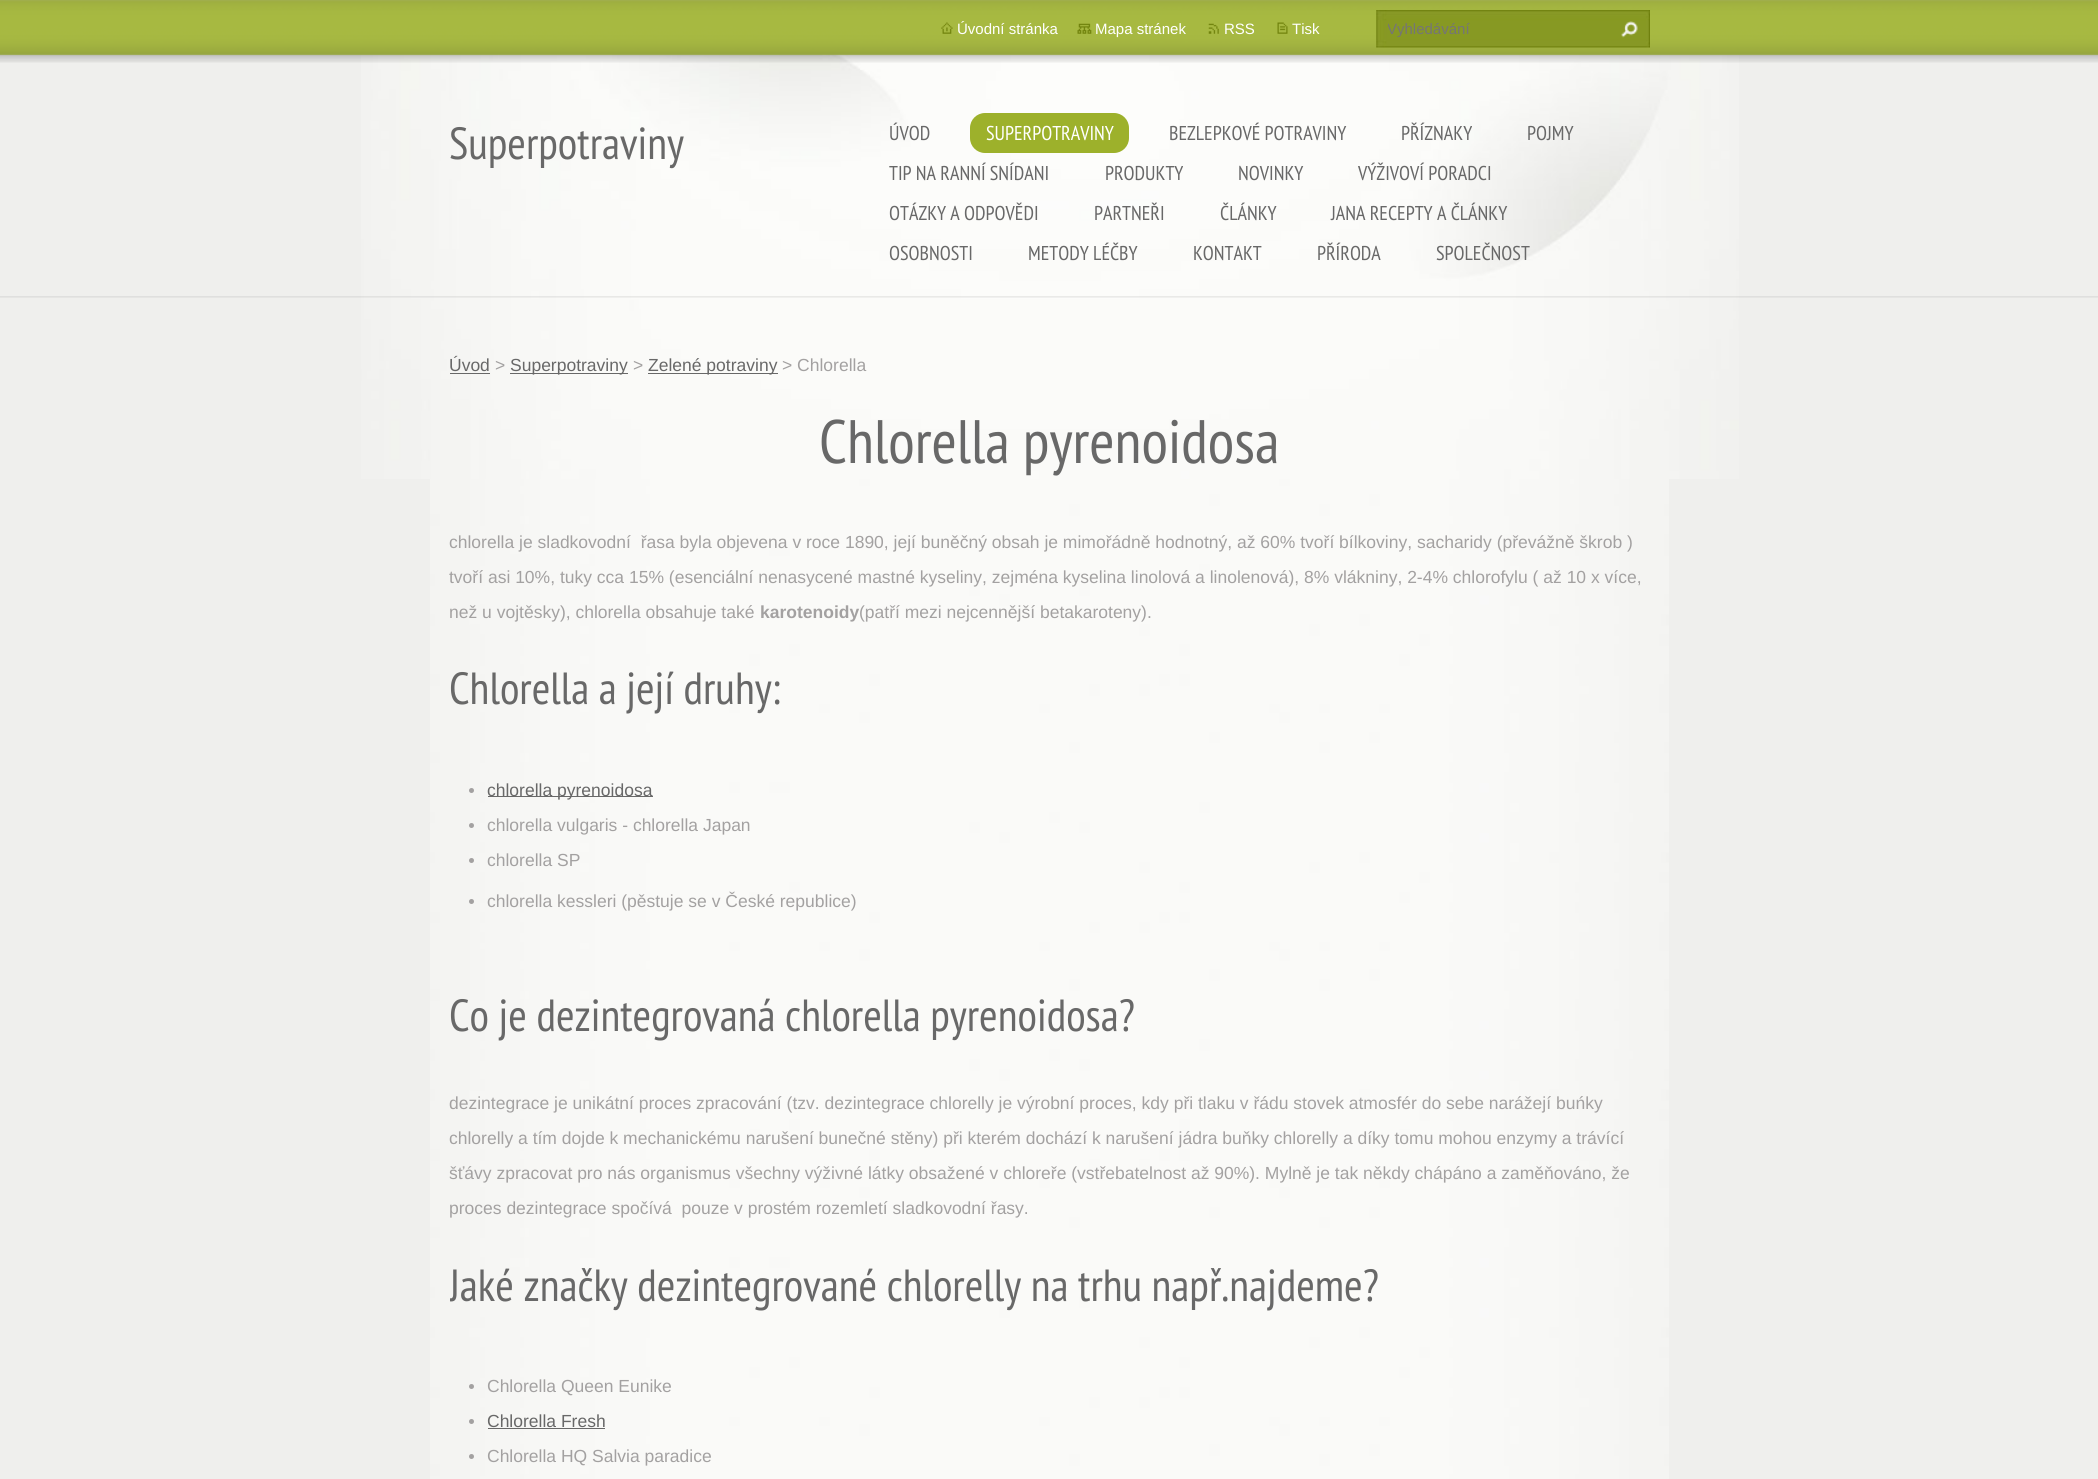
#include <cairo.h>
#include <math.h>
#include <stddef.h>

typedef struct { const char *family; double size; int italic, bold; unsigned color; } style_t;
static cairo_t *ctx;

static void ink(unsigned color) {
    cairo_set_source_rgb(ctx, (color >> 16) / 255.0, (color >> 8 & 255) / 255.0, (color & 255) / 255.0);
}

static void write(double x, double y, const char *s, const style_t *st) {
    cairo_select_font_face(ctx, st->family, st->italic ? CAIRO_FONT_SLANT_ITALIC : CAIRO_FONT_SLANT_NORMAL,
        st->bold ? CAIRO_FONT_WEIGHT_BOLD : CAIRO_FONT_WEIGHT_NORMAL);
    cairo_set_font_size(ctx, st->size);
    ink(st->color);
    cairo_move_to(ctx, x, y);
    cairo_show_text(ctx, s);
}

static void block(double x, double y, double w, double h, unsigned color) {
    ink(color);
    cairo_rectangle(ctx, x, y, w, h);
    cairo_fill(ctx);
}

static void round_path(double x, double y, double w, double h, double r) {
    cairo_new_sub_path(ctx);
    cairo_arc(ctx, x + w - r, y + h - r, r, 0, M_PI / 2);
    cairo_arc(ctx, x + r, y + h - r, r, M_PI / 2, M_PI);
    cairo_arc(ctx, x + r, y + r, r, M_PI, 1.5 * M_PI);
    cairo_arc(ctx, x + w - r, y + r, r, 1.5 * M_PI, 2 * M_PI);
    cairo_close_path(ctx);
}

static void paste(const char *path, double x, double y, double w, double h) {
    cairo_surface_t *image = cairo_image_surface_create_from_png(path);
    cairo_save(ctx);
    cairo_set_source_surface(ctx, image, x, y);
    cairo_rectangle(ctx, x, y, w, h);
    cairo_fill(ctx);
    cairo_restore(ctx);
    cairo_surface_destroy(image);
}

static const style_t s1 = {"Liberation Sans", 15, 0, 0, 0xffffff};
static const style_t s2 = {"Liberation Sans", 15, 0, 0, 0x757575};
static const style_t s3 = {"PT Sans Narrow", 45, 0, 0, 0x686868};
static const style_t s4 = {"PT Sans Narrow", 20, 0, 0, 0x686868};
static const style_t s5 = {"PT Sans Narrow", 20, 0, 0, 0xffffff};
static const style_t s6 = {"Liberation Sans", 17.5, 0, 0, 0x686868};
static const style_t s7 = {"Liberation Sans", 17.5, 0, 0, 0xa3a1a1};
static const style_t s8 = {"PT Sans Narrow", 61.25, 0, 0, 0x686868};
static const style_t s9 = {"Liberation Sans", 17.5, 0, 1, 0xa3a1a1};

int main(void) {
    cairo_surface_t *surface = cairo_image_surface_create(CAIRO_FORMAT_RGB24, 2098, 1479);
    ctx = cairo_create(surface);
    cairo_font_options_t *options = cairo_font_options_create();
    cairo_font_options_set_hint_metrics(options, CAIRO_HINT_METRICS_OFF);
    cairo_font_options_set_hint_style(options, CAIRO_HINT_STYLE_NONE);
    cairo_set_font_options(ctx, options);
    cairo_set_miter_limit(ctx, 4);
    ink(0xefefed);
    cairo_paint(ctx);
    paste("pic1.png", 430, 479, 1239, 1000);
    paste("pic2.png", 361, 54, 1378, 425);
    paste("pic3.png", 0, 296, 2098, 2);
    paste("pic4.png", 0, 0, 2098, 63);
    paste("pic5.png", 941, 22, 12, 12);
    write(957, 34, "Úvodní stránka", &s1);
    paste("pic6.png", 1077, 23, 15, 11);
    write(1095, 34, "Mapa stránek", &s1);
    paste("pic7.png", 1208, 23, 11, 11);
    write(1224, 34, "RSS", &s1);
    paste("pic8.png", 1277, 22, 11, 12);
    write(1292, 34, "Tisk", &s1);
    paste("pic9.png", 1376, 10, 274, 38);
    cairo_save(ctx);
    cairo_rectangle(ctx, 1388, 20, 212, 18);
    cairo_clip(ctx);
    write(1387, 34, "Vyhledávání", &s2);
    cairo_restore(ctx);
    paste("pic10.png", 1621, 21, 17, 17);
    write(449, 159, "Superpotraviny", &s3);
    write(889, 140, "ÚVOD", &s4);
    ink(0x9db12b);
    round_path(970, 113, 159, 40, 15);
    cairo_fill(ctx);
    write(986, 140, "SUPERPOTRAVINY", &s5);
    write(1169, 140, "BEZLEPKOVÉ POTRAVINY", &s4);
    write(1401, 140, "PŘÍZNAKY", &s4);
    write(1527, 140, "POJMY", &s4);
    write(889, 180, "TIP NA RANNÍ SNÍDANI", &s4);
    write(1105, 180, "PRODUKTY", &s4);
    write(1238, 180, "NOVINKY", &s4);
    write(1358, 180, "VÝŽIVOVÍ PORADCI", &s4);
    write(889, 220, "OTÁZKY A ODPOVĚDI", &s4);
    write(1094, 220, "PARTNEŘI", &s4);
    write(1220, 220, "ČLÁNKY", &s4);
    write(1331, 220, "JANA RECEPTY A ČLÁNKY", &s4);
    write(889, 260, "OSOBNOSTI", &s4);
    write(1028, 260, "METODY LÉČBY", &s4);
    write(1193, 260, "KONTAKT", &s4);
    write(1317, 260, "PŘÍRODA", &s4);
    write(1436, 260, "SPOLEČNOST", &s4);
    write(449, 371, "Úvod", &s6);
    block(450, 373, 40, 1, 0x686868);
    write(495, 371, ">", &s7);
    block(510, 373, 118, 1, 0x686868);
    write(510, 371, "Superpotraviny", &s6);
    write(633, 371, ">", &s7);
    block(648, 373, 130, 1, 0x686868);
    write(648, 371, "Zelené potraviny", &s6);
    write(782, 371, "> Chlorella", &s7);
    write(819, 463, "Chlorella pyrenoidosa", &s8);
    write(449, 548, "chlorella je sladkovodní  řasa byla objevena v roce 1890, její buněčný obsah je mimořádně hodnotný, až 60% tvoří bílkoviny, sacharidy (převážně škrob )", &s7);
    write(449, 583, "tvoří asi 10%, tuky cca 15% (esenciální nenasycené mastné kyseliny, zejména kyselina linolová a linolenová), 8% vlákniny, 2-4% chlorofylu ( až 10 x více,", &s7);
    write(449, 618, "než u vojtěsky), chlorella obsahuje také", &s7);
    write(760, 618, "karotenoidy", &s9);
    write(859, 618, "(patří mezi nejcennější betakaroteny).", &s7);
    write(449, 704, "Chlorella a její druhy:", &s3);
    ink(0xa3a1a1);
    cairo_new_path(ctx);
    cairo_arc(ctx, 471.5, 790.5, 2.5, 0, 2 * M_PI);
    cairo_fill(ctx);
    block(488, 796, 165, 1, 0x686868);
    write(487, 796, "chlorella pyrenoidosa", &s6);
    ink(0xa3a1a1);
    cairo_new_path(ctx);
    cairo_arc(ctx, 471.5, 825.5, 2.5, 0, 2 * M_PI);
    cairo_fill(ctx);
    write(487, 831, "chlorella vulgaris - chlorella Japan", &s7);
    cairo_new_path(ctx);
    cairo_arc(ctx, 471.5, 860.5, 2.5, 0, 2 * M_PI);
    cairo_fill(ctx);
    write(487, 866, "chlorella SP", &s7);
    cairo_new_path(ctx);
    cairo_arc(ctx, 471.5, 901.5, 2.5, 0, 2 * M_PI);
    cairo_fill(ctx);
    write(487, 907, "chlorella kessleri (pěstuje se v České republice)", &s7);
    write(449, 1031, "Co je dezintegrovaná chlorella pyrenoidosa?", &s3);
    write(449, 1109, "dezintegrace je unikátní proces zpracování (tzv. dezintegrace chlorelly je výrobní proces, kdy při tlaku v řádu stovek atmosfér do sebe narážejí buńky", &s7);
    write(449, 1144, "chlorelly a tím dojde k mechanickému narušení bunečné stěny) při kterém dochází k narušení jádra buňky chlorelly a díky tomu mohou enzymy a trávící", &s7);
    write(449, 1179, "šťávy zpracovat pro nás organismus všechny výživné látky obsažené v chloreře (vstřebatelnost až 90%). Mylně je tak někdy chápáno a zaměňováno, že", &s7);
    write(449, 1214, "proces dezintegrace spočívá  pouze v prostém rozemletí sladkovodní řasy.", &s7);
    cairo_save(ctx);
    cairo_rectangle(ctx, 450, 323, 1200, 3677);
    cairo_clip(ctx);
    write(449, 1301, "Jaké značky dezintegrované chlorelly na trhu např.najdeme?", &s3);
    cairo_restore(ctx);
    cairo_new_path(ctx);
    cairo_arc(ctx, 471.5, 1386.5, 2.5, 0, 2 * M_PI);
    cairo_fill(ctx);
    write(487, 1392, "Chlorella Queen Eunike", &s7);
    cairo_new_path(ctx);
    cairo_arc(ctx, 471.5, 1421.5, 2.5, 0, 2 * M_PI);
    cairo_fill(ctx);
    write(487, 1427, "Chlorella Fresh", &s6);
    block(488, 1428, 117, 1, 0x686868);
    ink(0xa3a1a1);
    cairo_new_path(ctx);
    cairo_arc(ctx, 471.5, 1456.5, 2.5, 0, 2 * M_PI);
    cairo_fill(ctx);
    write(487, 1462, "Chlorella HQ Salvia paradice", &s7);
    cairo_surface_write_to_png(surface, "screenshot.png");
    cairo_font_options_destroy(options);
    cairo_destroy(ctx);
    cairo_surface_destroy(surface);
    return 0;
}
